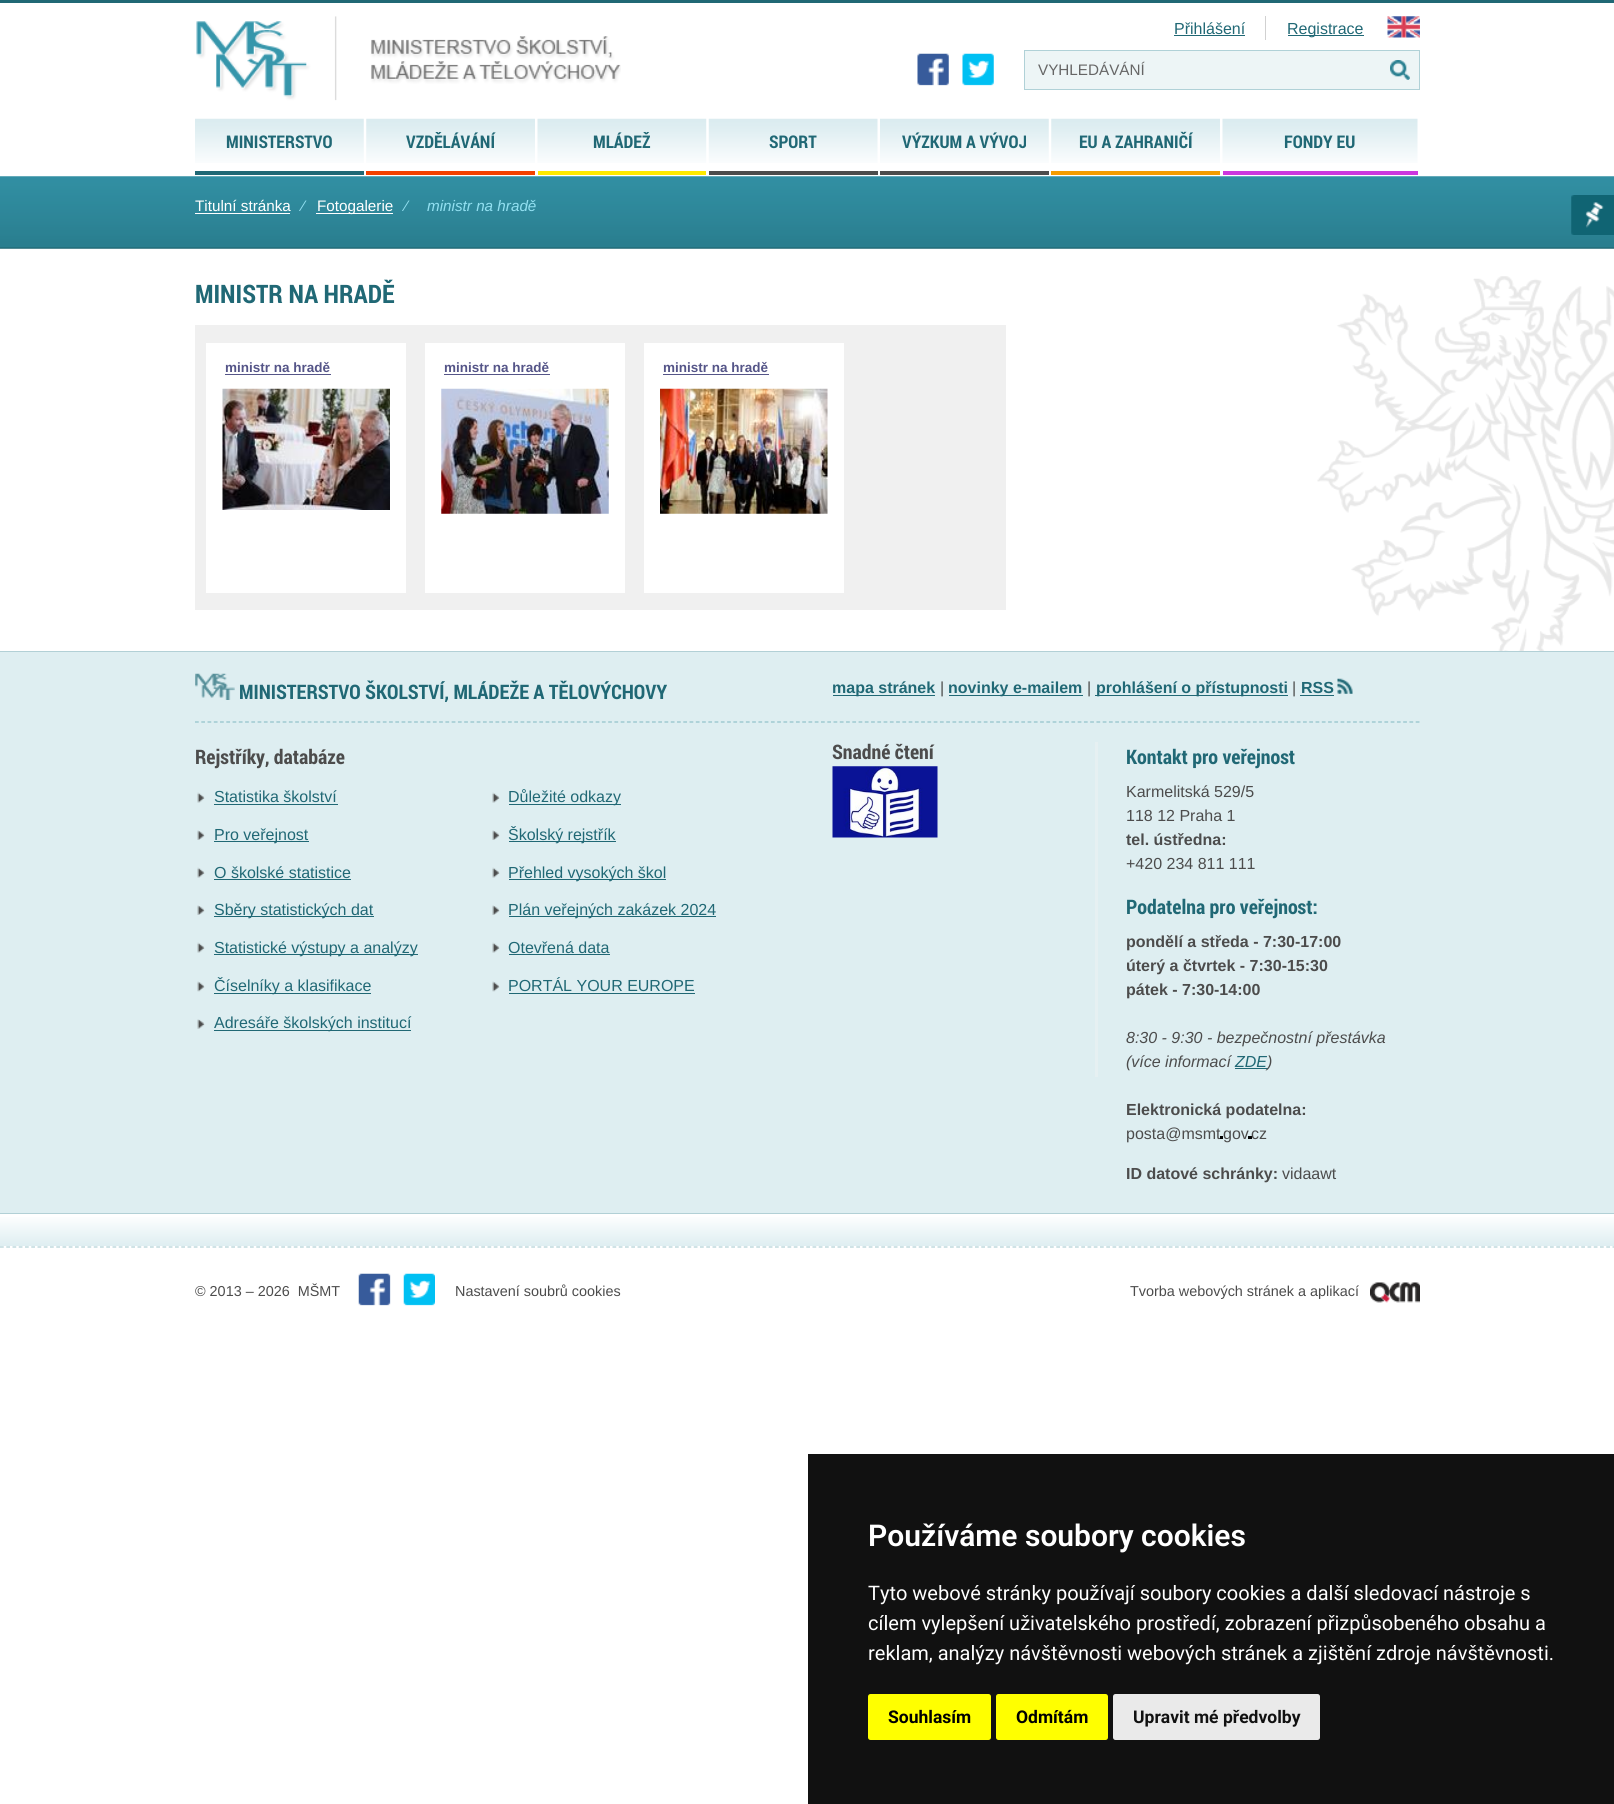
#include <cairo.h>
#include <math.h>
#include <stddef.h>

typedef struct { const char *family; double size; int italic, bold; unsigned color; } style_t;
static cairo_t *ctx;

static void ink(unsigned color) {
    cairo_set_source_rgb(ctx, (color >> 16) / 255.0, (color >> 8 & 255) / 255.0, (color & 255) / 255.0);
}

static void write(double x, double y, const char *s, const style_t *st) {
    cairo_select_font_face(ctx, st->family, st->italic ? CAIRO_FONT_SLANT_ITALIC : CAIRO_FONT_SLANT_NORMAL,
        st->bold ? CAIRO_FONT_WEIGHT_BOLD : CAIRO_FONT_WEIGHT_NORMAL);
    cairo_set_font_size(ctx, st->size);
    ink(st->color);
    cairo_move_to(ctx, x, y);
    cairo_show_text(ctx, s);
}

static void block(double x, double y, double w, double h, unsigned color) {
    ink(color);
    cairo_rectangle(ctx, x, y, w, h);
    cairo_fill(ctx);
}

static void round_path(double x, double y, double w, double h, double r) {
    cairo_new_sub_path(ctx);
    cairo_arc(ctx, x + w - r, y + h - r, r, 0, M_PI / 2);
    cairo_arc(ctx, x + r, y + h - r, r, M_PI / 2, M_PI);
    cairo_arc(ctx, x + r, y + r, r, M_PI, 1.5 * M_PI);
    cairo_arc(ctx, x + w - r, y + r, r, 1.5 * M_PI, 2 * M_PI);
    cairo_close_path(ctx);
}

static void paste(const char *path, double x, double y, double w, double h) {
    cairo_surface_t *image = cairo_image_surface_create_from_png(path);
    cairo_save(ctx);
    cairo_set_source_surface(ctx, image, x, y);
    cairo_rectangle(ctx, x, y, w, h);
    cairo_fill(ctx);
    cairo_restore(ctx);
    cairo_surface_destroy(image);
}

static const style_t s1 = {"Liberation Sans", 16, 0, 0, 0x206875};
static const style_t s2 = {"Liberation Sans", 15.25, 0, 0, 0x666666};
static const style_t s3 = {"Roboto Condensed", 17.5, 0, 1, 0x206875};
static const style_t s4 = {"Liberation Sans", 15.25, 0, 0, 0xffffff};
static const style_t s5 = {"Liberation Sans", 15.25, 0, 0, 0x92e0f1};
static const style_t s6 = {"Liberation Sans", 15.25, 1, 0, 0x92e0f1};
static const style_t s7 = {"Roboto Condensed", 25.5, 0, 1, 0x206875};
static const style_t s8 = {"Liberation Sans", 13.5, 0, 1, 0x555588};
static const style_t s9 = {"Roboto Condensed", 20, 0, 1, 0x206875};
static const style_t s10 = {"Liberation Sans", 16, 0, 1, 0x206875};
static const style_t s11 = {"Liberation Sans", 16, 0, 0, 0x4c4c4c};
static const style_t s12 = {"Roboto Condensed", 20, 0, 1, 0x4c4c4c};
static const style_t s13 = {"Liberation Sans", 16, 0, 1, 0x4c4c4c};
static const style_t s14 = {"Liberation Sans", 16, 1, 0, 0x4c4c4c};
static const style_t s15 = {"Liberation Sans", 16, 1, 0, 0x206875};
static const style_t s16 = {"Liberation Sans", 14.4, 0, 0, 0x4c4c4c};
static const style_t s17 = {"Roboto SemiBold", 30, 0, 0, 0xffffff};
static const style_t s18 = {"Roboto", 20, 0, 0, 0xffffff};
static const style_t s19 = {"Roboto", 17.5, 0, 1, 0x000000};
static const style_t s20 = {"Roboto", 17.5, 0, 1, 0x111111};

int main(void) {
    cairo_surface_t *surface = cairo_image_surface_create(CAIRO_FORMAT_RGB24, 1614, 1804);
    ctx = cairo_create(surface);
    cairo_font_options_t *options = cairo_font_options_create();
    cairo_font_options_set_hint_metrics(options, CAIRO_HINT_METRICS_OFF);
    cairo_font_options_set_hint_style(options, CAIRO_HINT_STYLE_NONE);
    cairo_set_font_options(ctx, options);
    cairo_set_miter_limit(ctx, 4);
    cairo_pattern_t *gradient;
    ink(0xffffff);
    cairo_paint(ctx);
    block(0, 0, 1614, 3, 0x206875);
    paste("pic1.png", 0, 176, 1614, 73);
    paste("pic2.png", 1317, 276, 297, 375);
    paste("pic3.png", 196, 16, 425, 85);
    write(1174, 34, "Přihlášení", &s1);
    block(1174, 35, 71, 1, 0x206875);
    block(1265, 16, 1, 24, 0xd1d1d1);
    block(1288, 35, 76, 1, 0x206875);
    write(1287, 34, "Registrace", &s1);
    paste("pic4.png", 1387, 16, 33, 22);
    paste("pic5.png", 917, 53, 32, 33);
    paste("pic6.png", 962, 53, 32, 33);
    block(1025, 51, 394, 38, 0xedf5f6);
    block(1024, 50, 396, 1, 0xb0d1d7);
    block(1024, 89, 356, 1, 0xb0d1d7);
    block(1024, 50, 1, 40, 0xb0d1d7);
    write(1038, 75, "VYHLEDÁVÁNÍ", &s2);
    paste("pic7.png", 1390, 60, 20, 20);
    block(1419, 50, 1, 40, 0xb0d1d7);
    block(1380, 89, 40, 1, 0xb0d1d7);
    paste("pic8.png", 195, 118, 169, 45);
    block(195, 171, 169, 4, 0x206875);
    write(226, 148, "MINISTERSTVO", &s3);
    paste("pic9.png", 366, 118, 169, 45);
    block(366, 171, 169, 4, 0xf34100);
    write(406, 148, "VZDĚLÁVÁNÍ", &s3);
    paste("pic10.png", 537, 118, 170, 45);
    block(538, 171, 168, 4, 0xffea00);
    write(593, 148, "MLÁDEŽ", &s3);
    paste("pic11.png", 708, 118, 170, 45);
    block(709, 171, 169, 4, 0x4c4c4c);
    write(769, 148, "SPORT", &s3);
    paste("pic8.png", 880, 118, 169, 45);
    block(880, 171, 169, 4, 0x4c4c4c);
    write(902, 148, "VÝZKUM A VÝVOJ", &s3);
    paste("pic9.png", 1051, 118, 169, 45);
    block(1051, 171, 169, 4, 0xf59c00);
    write(1079, 148, "EU A ZAHRANIČÍ", &s3);
    paste("pic12.png", 1222, 118, 196, 45);
    block(1223, 171, 195, 4, 0xcc37de);
    write(1284, 148, "FONDY EU", &s3);
    paste("pic13.png", 1571, 195, 43, 40);
    write(195, 211, "Titulní stránka", &s4);
    block(195, 213, 95, 1, 0xffffff);
    write(302, 211, "⁄", &s5);
    block(316, 213, 77, 1, 0xffffff);
    write(317, 211, "Fotogalerie", &s4);
    write(405, 211, "⁄", &s5);
    write(427, 211, "ministr na hradě", &s6);
    write(195, 303, "MINISTR NA HRADĚ", &s7);
    block(195, 325, 811, 285, 0xf0f0f0);
    block(206, 343, 200, 250, 0xffffff);
    write(225, 372, "ministr na hradě", &s8);
    block(225, 374, 106, 1, 0x555588);
    paste("pic14.png", 222, 388, 168, 122);
    block(425, 343, 200, 250, 0xffffff);
    write(444, 372, "ministr na hradě", &s8);
    block(444, 374, 106, 1, 0x555588);
    paste("pic15.png", 441, 388, 168, 126);
    block(644, 343, 200, 250, 0xffffff);
    write(663, 372, "ministr na hradě", &s8);
    block(663, 374, 106, 1, 0x555588);
    paste("pic16.png", 660, 388, 168, 126);
    block(0, 652, 1614, 561, 0xdeeef1);
    block(0, 651, 1614, 1, 0xb2d0d6);
    block(1095, 742, 3, 335, 0xe6f0f2);
    paste("pic17.png", 195, 673, 40, 27);
    write(239, 699, "MINISTERSTVO ŠKOLSTVÍ, MLÁDEŽE A TĚLOVÝCHOVY", &s9);
    block(833, 695, 102, 1, 0x206875);
    write(832, 693, "mapa stránek", &s10);
    write(940, 693, "|", &s11);
    block(949, 695, 134, 1, 0x206875);
    write(948, 693, "novinky e-mailem", &s10);
    write(1087, 693, "|", &s11);
    block(1095, 695, 193, 1, 0x206875);
    write(1096, 693, "prohlášení o přístupnosti", &s10);
    write(1292, 693, "|", &s11);
    write(1301, 693, "RSS", &s10);
    block(1300, 695, 34, 1, 0x206875);
    paste("pic18.png", 1337, 678, 16, 16);
    cairo_new_path(ctx);
    cairo_move_to(ctx, 195, 722);
    cairo_line_to(ctx, 1420, 722);
    ink(0x90c1ca);
    cairo_set_line_width(ctx, 1.2);
    cairo_set_dash(ctx, (double[]){3.75, 2.51}, 2, 0);
    cairo_stroke(ctx);
    write(195, 764, "Rejstříky, databáze", &s12);
    paste("pic19.png", 197, 792, 8, 11);
    write(214, 802, "Statistika školství", &s1);
    block(214, 804, 124, 1, 0x206875);
    paste("pic20.png", 197, 830, 8, 10);
    block(214, 841, 95, 1, 0x206875);
    write(214, 840, "Pro veřejnost", &s1);
    paste("pic19.png", 197, 867, 8, 11);
    write(214, 878, "O školské statistice", &s1);
    block(214, 879, 137, 1, 0x206875);
    paste("pic20.png", 197, 905, 8, 10);
    block(214, 916, 160, 1, 0x206875);
    write(214, 915, "Sběry statistických dat", &s1);
    paste("pic19.png", 197, 942, 8, 11);
    block(214, 954, 204, 1, 0x206875);
    write(214, 953, "Statistické výstupy a analýzy", &s1);
    paste("pic21.png", 197, 981, 8, 11);
    block(214, 993, 157, 1, 0x206875);
    write(214, 991, "Číselníky a klasifikace", &s1);
    paste("pic22.png", 197, 1019, 8, 10);
    block(214, 1030, 197, 1, 0x206875);
    write(214, 1028, "Adresáře školských institucí", &s1);
    paste("pic19.png", 492, 792, 8, 11);
    block(509, 804, 112, 1, 0x206875);
    write(508, 802, "Důležité odkazy", &s1);
    paste("pic20.png", 492, 830, 8, 10);
    block(509, 841, 107, 1, 0x206875);
    write(508, 840, "Školský rejstřík", &s1);
    paste("pic19.png", 492, 867, 8, 11);
    block(509, 879, 157, 1, 0x206875);
    write(508, 878, "Přehled vysokých škol", &s1);
    paste("pic20.png", 492, 905, 8, 10);
    block(509, 916, 207, 1, 0x206875);
    write(508, 915, "Plán veřejných zakázek 2024", &s1);
    paste("pic19.png", 492, 942, 8, 11);
    write(508, 953, "Otevřená data", &s1);
    block(509, 954, 101, 1, 0x206875);
    paste("pic21.png", 492, 981, 8, 11);
    write(508, 991, "PORTÁL YOUR EUROPE", &s1);
    block(509, 993, 186, 1, 0x206875);
    write(832, 759, "Snadné čtení", &s12);
    write(1126, 764, "Kontakt pro veřejnost", &s9);
    write(1126, 797, "Karmelitská 529/5", &s11);
    write(1126, 821, "118 12 Praha 1", &s11);
    write(1126, 845, "tel. ústředna:", &s13);
    write(1126, 869, "+420 234 811 111", &s11);
    write(1126, 914, "Podatelna pro veřejnost:", &s9);
    write(1126, 947, "pondělí a středa - 7:30-17:00", &s13);
    write(1126, 971, "úterý a čtvrtek - 7:30-15:30", &s13);
    write(1126, 995, "pátek - 7:30-14:00", &s13);
    write(1126, 1043, "8:30 - 9:30 - bezpečnostní přestávka", &s14);
    write(1126, 1067, "(více informací", &s14);
    write(1235, 1067, "ZDE", &s15);
    block(1235, 1068, 33, 1, 0x206875);
    write(1267, 1067, ")", &s14);
    write(1126, 1115, "Elektronická podatelna:", &s13);
    write(1126, 1139, "posta@msmt", &s11);
    write(1223, 1139, "gov", &s11);
    block(1220, 1136, 3, 3, 0x000000);
    block(1248, 1136, 4, 3, 0x000000);
    write(1251, 1139, "cz", &s11);
    write(1126, 1179, "ID datové schránky:", &s13);
    write(1282, 1179, "vidaawt", &s11);
    paste("pic23.png", 832, 766, 106, 72);
    gradient = cairo_pattern_create_linear(808, 1214, 808, 1246);
    cairo_pattern_add_color_stop_rgba(gradient, 0.01, 1, 1, 1, 1);
    cairo_pattern_add_color_stop_rgba(gradient, 1, 0.871, 0.933, 0.945, 1);
    cairo_set_source(ctx, gradient);
    cairo_pattern_destroy(gradient);
    cairo_rectangle(ctx, 0, 1217, 1614, 29);
    cairo_fill(ctx);
    block(0, 1213, 1614, 1, 0xb2d0d6);
    cairo_new_path(ctx);
    cairo_move_to(ctx, 0, 1247);
    cairo_line_to(ctx, 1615, 1247);
    cairo_set_dash(ctx, (double[]){3.75, 2.5}, 2, 0);
    cairo_stroke(ctx);
    write(195, 1296, "© 2013 – 2026  MŠMT", &s16);
    paste("pic24.png", 358, 1273, 33, 33);
    paste("pic25.png", 403, 1273, 32, 33);
    write(455, 1296, "Nastavení soubrů cookies", &s16);
    write(1130, 1296, "Tvorba webových stránek a aplikací", &s16);
    paste("pic26.png", 1370, 1282, 50, 21);
    block(808, 1454, 806, 350, 0x111111);
    write(868, 1546, "Používáme soubory cookies", &s17);
    write(868, 1600, "Tyto webové stránky používají soubory cookies a další sledovací nástroje s", &s18);
    write(868, 1630, "cílem vylepšení uživatelského prostředí, zobrazení přizpůsobeného obsahu a", &s18);
    write(868, 1660, "reklam, analýzy návštěvnosti webových stránek a zjištění zdroje návštěvnosti.", &s18);
    ink(0xffff00);
    round_path(868, 1694, 123, 46, 2.5);
    cairo_fill(ctx);
    write(888, 1723, "Souhlasím", &s19);
    ink(0xffff00);
    round_path(996, 1694, 112, 46, 2.5);
    cairo_fill(ctx);
    write(1016, 1723, "Odmítám", &s19);
    ink(0xeaeaea);
    round_path(1113, 1694, 207, 46, 2.5);
    cairo_fill(ctx);
    write(1133, 1723, "Upravit mé předvolby", &s20);
    cairo_surface_write_to_png(surface, "screenshot.png");
    cairo_font_options_destroy(options);
    cairo_destroy(ctx);
    cairo_surface_destroy(surface);
    return 0;
}
